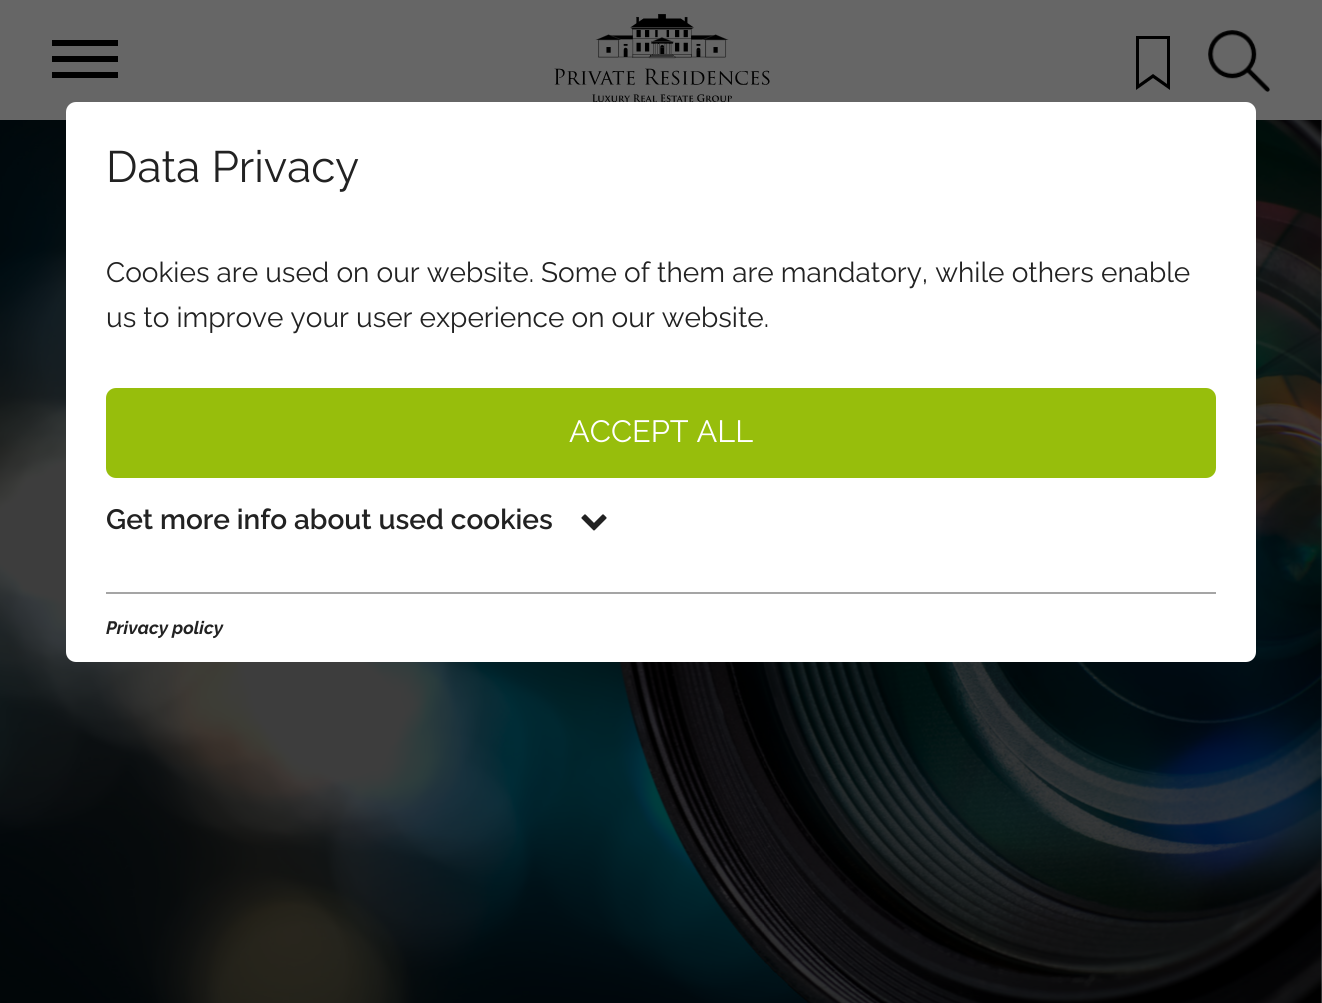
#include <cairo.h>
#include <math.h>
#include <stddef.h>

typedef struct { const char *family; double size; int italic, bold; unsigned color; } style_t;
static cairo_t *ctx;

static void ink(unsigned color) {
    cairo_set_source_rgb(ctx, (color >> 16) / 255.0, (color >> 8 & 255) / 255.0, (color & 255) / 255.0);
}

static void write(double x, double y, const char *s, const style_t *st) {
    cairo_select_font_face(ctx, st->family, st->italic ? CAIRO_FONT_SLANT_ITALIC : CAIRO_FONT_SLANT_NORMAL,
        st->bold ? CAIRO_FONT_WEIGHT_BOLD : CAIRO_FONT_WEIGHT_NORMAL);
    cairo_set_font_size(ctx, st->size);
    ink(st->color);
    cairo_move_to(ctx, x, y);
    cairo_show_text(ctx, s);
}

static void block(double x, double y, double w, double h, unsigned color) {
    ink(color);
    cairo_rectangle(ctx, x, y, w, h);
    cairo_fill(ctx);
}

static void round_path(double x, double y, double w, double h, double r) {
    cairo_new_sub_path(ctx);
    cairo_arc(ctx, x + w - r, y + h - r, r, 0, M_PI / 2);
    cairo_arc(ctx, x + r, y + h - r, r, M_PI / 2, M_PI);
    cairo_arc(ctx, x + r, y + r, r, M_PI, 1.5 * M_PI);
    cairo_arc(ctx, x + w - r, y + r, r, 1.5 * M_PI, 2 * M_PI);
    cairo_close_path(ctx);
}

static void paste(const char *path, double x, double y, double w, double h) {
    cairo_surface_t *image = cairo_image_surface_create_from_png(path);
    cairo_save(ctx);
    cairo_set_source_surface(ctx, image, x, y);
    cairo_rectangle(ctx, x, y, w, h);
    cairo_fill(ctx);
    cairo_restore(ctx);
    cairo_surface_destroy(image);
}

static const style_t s1 = {"Raleway", 44, 0, 0, 0x222222};
static const style_t s2 = {"Raleway", 28, 0, 0, 0x222222};
static const style_t s3 = {"Raleway", 30.75, 0, 0, 0xffffff};
static const style_t s4 = {"Raleway SemiBold", 28, 0, 0, 0x222222};
static const style_t s5 = {"Raleway Thin", 18, 1, 0, 0x222222};

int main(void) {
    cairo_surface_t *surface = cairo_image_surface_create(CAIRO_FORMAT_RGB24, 1322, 1003);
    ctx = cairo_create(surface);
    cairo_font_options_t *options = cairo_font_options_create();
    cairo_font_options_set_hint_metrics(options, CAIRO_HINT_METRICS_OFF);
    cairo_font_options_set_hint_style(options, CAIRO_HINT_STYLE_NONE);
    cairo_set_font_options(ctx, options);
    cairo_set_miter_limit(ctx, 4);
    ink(0xffffff);
    cairo_paint(ctx);
    block(0, 0, 1322, 120, 0x666666);
    block(52, 40, 66, 6, 0x000000);
    block(52, 56, 66, 6, 0x000000);
    block(52, 72, 66, 6, 0x000000);
    paste("pic1.png", 554, 14, 216, 88);
    cairo_new_path(ctx);
    cairo_move_to(ctx, 1153, 78);
    cairo_line_to(ctx, 1170, 90);
    cairo_line_to(ctx, 1170, 36);
    cairo_line_to(ctx, 1136, 36);
    cairo_line_to(ctx, 1136, 90);
    cairo_close_path(ctx);
    cairo_move_to(ctx, 1139, 39);
    cairo_line_to(ctx, 1167, 39);
    cairo_line_to(ctx, 1167, 84);
    cairo_line_to(ctx, 1153, 74);
    cairo_line_to(ctx, 1139, 84);
    cairo_close_path(ctx);
    cairo_fill(ctx);
    paste("pic2.png", 1208, 30, 62, 62);
    paste("pic3.png", 0, 120, 1322, 883);
    ink(0xffffff);
    round_path(66, 102, 1190, 560, 10);
    cairo_fill(ctx);
    write(106, 182, "Data Privacy", &s1);
    write(106, 282, "Cookies are used on our website. Some of them are mandatory, while others enable", &s2);
    write(106, 327, "us to improve your user experience on our website.", &s2);
    ink(0x97be0c);
    round_path(106, 388, 1110, 90, 10);
    cairo_fill(ctx);
    write(569, 442, "ACCEPT ALL", &s3);
    write(106, 529, "Get more info about used cookies", &s4);
    paste("pic4.png", 581, 514, 26, 17);
    block(106, 592, 1110, 2, 0xa5a5a5);
    write(106, 634, "Privacy policy", &s5);
    cairo_surface_write_to_png(surface, "screenshot.png");
    cairo_font_options_destroy(options);
    cairo_destroy(ctx);
    cairo_surface_destroy(surface);
    return 0;
}
